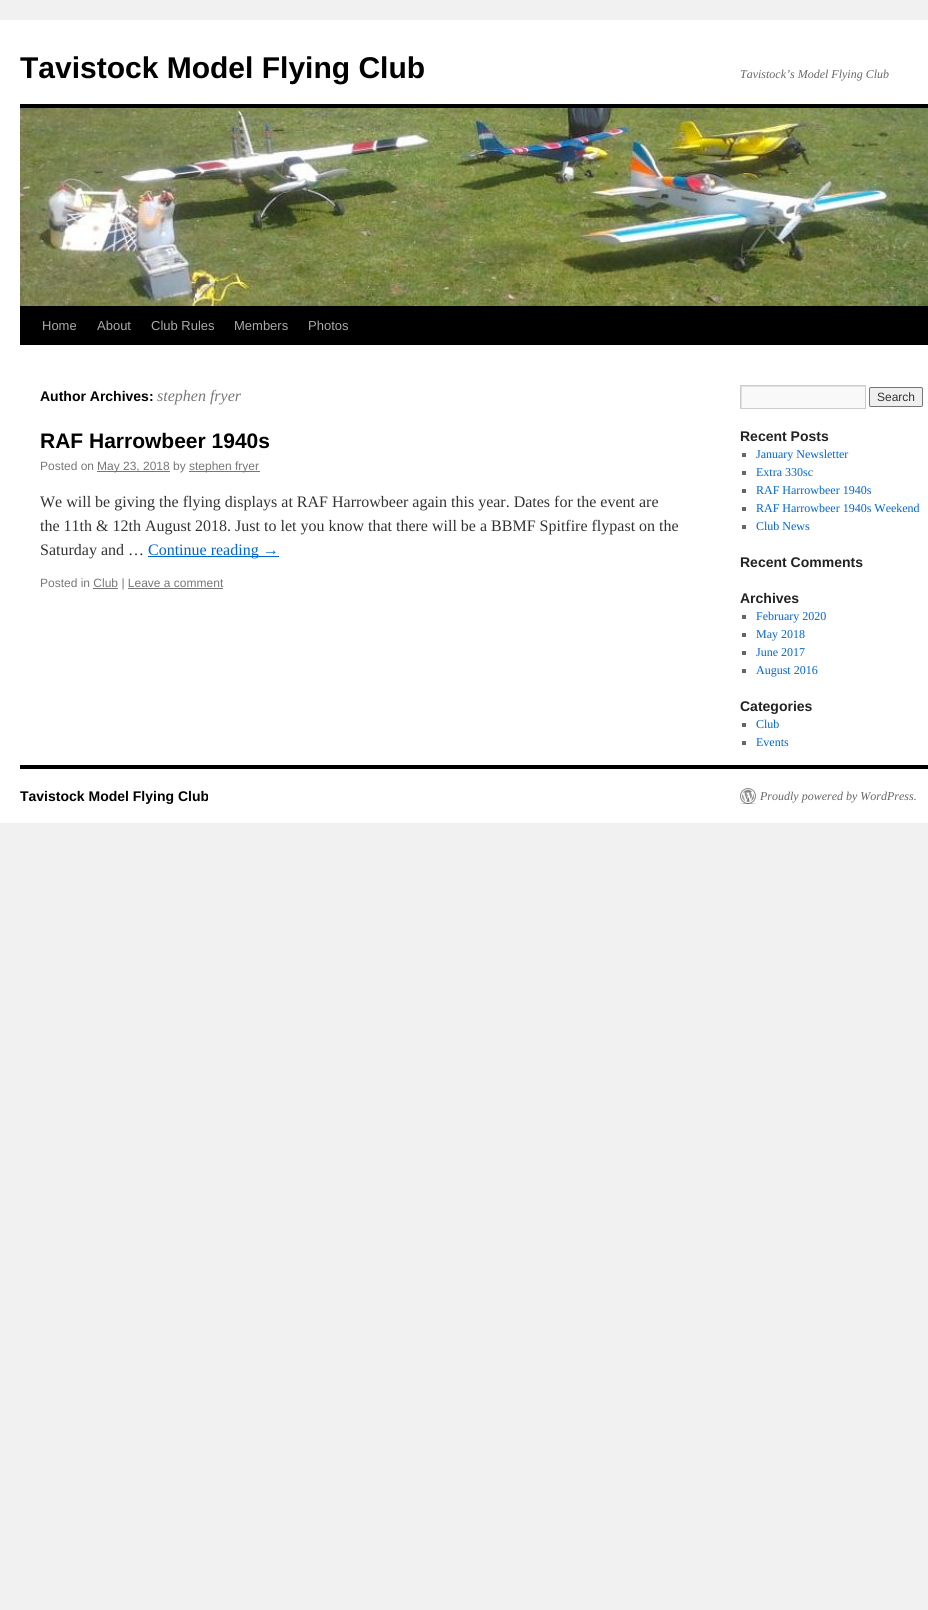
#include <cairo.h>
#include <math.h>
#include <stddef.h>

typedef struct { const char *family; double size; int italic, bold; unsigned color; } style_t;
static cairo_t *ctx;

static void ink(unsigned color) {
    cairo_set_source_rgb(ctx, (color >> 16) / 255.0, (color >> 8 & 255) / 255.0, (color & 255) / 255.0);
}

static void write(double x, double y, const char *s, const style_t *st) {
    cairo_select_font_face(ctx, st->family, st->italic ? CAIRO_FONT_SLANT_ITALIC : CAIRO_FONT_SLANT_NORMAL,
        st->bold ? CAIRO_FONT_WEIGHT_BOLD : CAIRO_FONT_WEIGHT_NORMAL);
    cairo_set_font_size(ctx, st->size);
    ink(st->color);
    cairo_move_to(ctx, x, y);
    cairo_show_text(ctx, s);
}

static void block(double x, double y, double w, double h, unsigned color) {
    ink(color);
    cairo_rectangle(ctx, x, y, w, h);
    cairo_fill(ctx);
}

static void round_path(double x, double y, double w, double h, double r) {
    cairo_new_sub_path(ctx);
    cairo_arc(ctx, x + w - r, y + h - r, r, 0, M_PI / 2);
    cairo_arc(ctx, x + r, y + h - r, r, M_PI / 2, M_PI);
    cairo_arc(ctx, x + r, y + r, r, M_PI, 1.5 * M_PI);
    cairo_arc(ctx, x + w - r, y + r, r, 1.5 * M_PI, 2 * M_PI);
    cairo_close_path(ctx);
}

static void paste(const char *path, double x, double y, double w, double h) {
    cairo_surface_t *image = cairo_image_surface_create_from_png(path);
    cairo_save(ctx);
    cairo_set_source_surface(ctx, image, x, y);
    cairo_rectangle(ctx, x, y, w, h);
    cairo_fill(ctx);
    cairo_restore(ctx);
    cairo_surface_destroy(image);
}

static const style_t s1 = {"Liberation Sans", 30, 0, 1, 0x000000};
static const style_t s2 = {"Liberation Serif", 12, 1, 0, 0x666666};
static const style_t s3 = {"Liberation Sans", 13, 0, 0, 0xaaaaaa};
static const style_t s4 = {"Liberation Sans", 14, 0, 1, 0x000000};
static const style_t s5 = {"Liberation Serif", 16, 1, 0, 0x777777};
static const style_t s6 = {"Liberation Sans", 21, 0, 1, 0x000000};
static const style_t s7 = {"Liberation Sans", 12, 0, 0, 0x777777};
static const style_t s8 = {"Liberation Serif", 16, 0, 0, 0x333333};
static const style_t s9 = {"Liberation Serif", 16, 0, 0, 0x0066cc};
static const style_t s10 = {"Liberation Sans", 12, 0, 0, 0x333333};
static const style_t s11 = {"Liberation Sans", 14, 0, 1, 0x222222};
static const style_t s12 = {"Liberation Serif", 12, 0, 0, 0x0066cc};

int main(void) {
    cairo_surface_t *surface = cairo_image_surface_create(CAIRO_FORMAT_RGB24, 928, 1610);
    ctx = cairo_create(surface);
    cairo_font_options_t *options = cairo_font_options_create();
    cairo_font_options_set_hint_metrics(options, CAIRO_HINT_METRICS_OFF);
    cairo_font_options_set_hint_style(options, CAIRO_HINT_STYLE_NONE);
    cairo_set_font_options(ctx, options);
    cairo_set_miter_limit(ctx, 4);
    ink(0xf1f1f1);
    cairo_paint(ctx);
    block(0, 20, 928, 803, 0xffffff);
    write(20, 78, "Tavistock Model Flying Club", &s1);
    write(740, 78, "Tavistock’s Model Flying Club", &s2);
    block(20, 104, 908, 4, 0x000000);
    block(20, 306, 908, 39, 0x000000);
    paste("pic1.png", 20, 108, 908, 198);
    write(42, 330, "Home", &s3);
    write(97, 330, "About", &s3);
    write(151, 330, "Club Rules", &s3);
    write(234, 330, "Members", &s3);
    write(308, 330, "Photos", &s3);
    write(40, 401, "Author Archives:", &s4);
    write(157, 401, "stephen fryer", &s5);
    write(40, 448, "RAF Harrowbeer 1940s", &s6);
    write(40, 470, "Posted on", &s7);
    block(97, 471, 73, 1, 0x777777);
    write(97, 470, "May 23, 2018 by", &s7);
    block(189, 471, 71, 1, 0x777777);
    write(189, 470, "stephen fryer", &s7);
    write(40, 507, "We will be giving the flying displays at RAF Harrowbeer again this year. Dates for the event are", &s8);
    write(40, 531, "the 11th & 12th August 2018. Just to let you know that there will be a BBMF Spitfire flypast on the", &s8);
    write(40, 555, "Saturday and …", &s8);
    block(148, 556, 131, 1, 0x0066cc);
    write(148, 555, "Continue reading →", &s9);
    write(40, 587, "Posted in Club | Leave a comment", &s7);
    block(93, 588, 25, 1, 0x777777);
    block(128, 588, 95, 1, 0x777777);
    block(742, 387, 123, 21, 0xf9f9f9);
    cairo_save(ctx);
    cairo_rectangle(ctx, 741, 386, 124, 22);
    cairo_clip(ctx);
    ink(0xe0e0e0);
    cairo_set_fill_rule(ctx, CAIRO_FILL_RULE_EVEN_ODD);
    cairo_new_path(ctx);
    cairo_move_to(ctx, 642, 287);
    cairo_line_to(ctx, 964, 287);
    cairo_line_to(ctx, 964, 507);
    cairo_line_to(ctx, 642, 507);
    cairo_close_path(ctx);
    cairo_move_to(ctx, 742, 387);
    cairo_line_to(ctx, 866, 387);
    cairo_line_to(ctx, 866, 409);
    cairo_line_to(ctx, 742, 409);
    cairo_close_path(ctx);
    cairo_fill(ctx);
    cairo_restore(ctx);
    cairo_rectangle(ctx, 740.5, 385.5, 125, 23);
    ink(0xcccccc);
    cairo_set_line_width(ctx, 1);
    cairo_stroke(ctx);
    ink(0xefefef);
    round_path(869.5, 387.5, 53, 19, 1.5);
    cairo_fill_preserve(ctx);
    ink(0x767676);
    cairo_stroke(ctx);
    write(877, 401, "Search", &s10);
    write(740, 441, "Recent Posts", &s11);
    block(742, 453, 4, 4, 0x666666);
    write(756, 458, "January Newsletter", &s12);
    block(742, 471, 4, 4, 0x666666);
    write(756, 476, "Extra 330sc", &s12);
    block(742, 489, 4, 4, 0x666666);
    write(756, 494, "RAF Harrowbeer 1940s", &s12);
    block(742, 507, 4, 4, 0x666666);
    write(756, 512, "RAF Harrowbeer 1940s Weekend", &s12);
    block(742, 525, 4, 4, 0x666666);
    write(756, 530, "Club News", &s12);
    write(740, 567, "Recent Comments", &s11);
    write(740, 603, "Archives", &s11);
    block(742, 615, 4, 4, 0x666666);
    write(756, 620, "February 2020", &s12);
    block(742, 633, 4, 4, 0x666666);
    write(756, 638, "May 2018", &s12);
    block(742, 651, 4, 4, 0x666666);
    write(756, 656, "June 2017", &s12);
    block(742, 669, 4, 4, 0x666666);
    write(756, 674, "August 2016", &s12);
    write(740, 711, "Categories", &s11);
    block(742, 723, 4, 4, 0x666666);
    write(756, 728, "Club", &s12);
    block(742, 741, 4, 4, 0x666666);
    write(756, 746, "Events", &s12);
    block(20, 765, 908, 4, 0x000000);
    write(20, 801, "Tavistock Model Flying Club", &s4);
    paste("pic2.png", 740, 788, 16, 16);
    write(760, 800, "Proudly powered by WordPress.", &s2);
    cairo_surface_write_to_png(surface, "screenshot.png");
    cairo_font_options_destroy(options);
    cairo_destroy(ctx);
    cairo_surface_destroy(surface);
    return 0;
}
